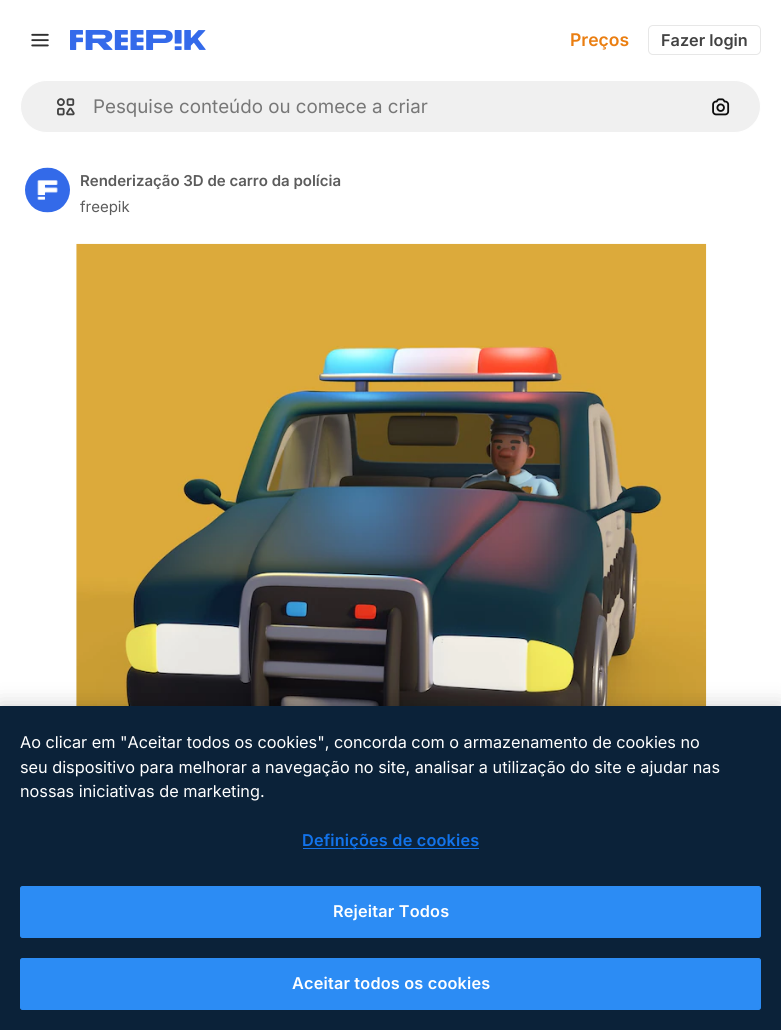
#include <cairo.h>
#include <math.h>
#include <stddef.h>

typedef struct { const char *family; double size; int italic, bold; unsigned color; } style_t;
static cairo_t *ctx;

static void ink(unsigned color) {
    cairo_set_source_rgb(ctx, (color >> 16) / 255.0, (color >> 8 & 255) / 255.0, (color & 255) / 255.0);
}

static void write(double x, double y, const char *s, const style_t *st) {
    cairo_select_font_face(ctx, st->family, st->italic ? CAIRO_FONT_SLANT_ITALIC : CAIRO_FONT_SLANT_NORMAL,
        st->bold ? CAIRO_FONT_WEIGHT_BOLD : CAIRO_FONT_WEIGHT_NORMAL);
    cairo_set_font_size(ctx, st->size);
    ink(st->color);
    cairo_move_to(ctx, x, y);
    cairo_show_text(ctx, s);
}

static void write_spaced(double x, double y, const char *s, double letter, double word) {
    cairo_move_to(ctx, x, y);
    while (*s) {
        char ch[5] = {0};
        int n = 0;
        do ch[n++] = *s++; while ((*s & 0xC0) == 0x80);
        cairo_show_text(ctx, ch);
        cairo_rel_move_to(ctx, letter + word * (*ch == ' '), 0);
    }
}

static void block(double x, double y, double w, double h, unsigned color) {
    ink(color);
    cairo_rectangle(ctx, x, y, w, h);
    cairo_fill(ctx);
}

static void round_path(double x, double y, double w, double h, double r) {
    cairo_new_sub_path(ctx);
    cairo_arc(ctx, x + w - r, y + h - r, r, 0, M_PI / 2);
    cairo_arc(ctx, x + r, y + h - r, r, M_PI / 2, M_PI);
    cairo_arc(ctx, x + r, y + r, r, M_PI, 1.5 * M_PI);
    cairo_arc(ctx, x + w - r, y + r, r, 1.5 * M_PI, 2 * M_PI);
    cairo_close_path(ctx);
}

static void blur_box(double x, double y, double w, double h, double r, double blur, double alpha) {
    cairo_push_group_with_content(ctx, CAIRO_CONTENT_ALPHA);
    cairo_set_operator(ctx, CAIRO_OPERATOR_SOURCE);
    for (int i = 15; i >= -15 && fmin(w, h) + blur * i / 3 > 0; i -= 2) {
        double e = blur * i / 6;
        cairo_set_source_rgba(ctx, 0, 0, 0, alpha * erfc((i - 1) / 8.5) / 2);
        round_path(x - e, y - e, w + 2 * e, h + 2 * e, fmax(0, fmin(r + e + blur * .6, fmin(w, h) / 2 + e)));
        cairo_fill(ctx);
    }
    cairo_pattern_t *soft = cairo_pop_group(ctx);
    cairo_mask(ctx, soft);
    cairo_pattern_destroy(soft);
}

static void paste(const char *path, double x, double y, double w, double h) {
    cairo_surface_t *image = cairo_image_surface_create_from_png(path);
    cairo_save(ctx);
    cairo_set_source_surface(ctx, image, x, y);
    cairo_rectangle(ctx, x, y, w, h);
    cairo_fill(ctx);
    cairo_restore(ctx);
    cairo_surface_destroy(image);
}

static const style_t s1 = {"Inter SemiBold", 17.5, 0, 0, 0xea7e11};
static const style_t s2 = {"Inter SemiBold", 16.25, 0, 0, 0x424242};
static const style_t s3 = {"Inter", 18.75, 0, 0, 0x777777};
static const style_t s4 = {"Inter SemiBold", 15, 0, 0, 0x5c5c5c};
static const style_t s5 = {"Inter", 15, 0, 0, 0x5c5c5c};
static const style_t s6 = {"Inter", 16.25, 0, 0, 0xffffff};

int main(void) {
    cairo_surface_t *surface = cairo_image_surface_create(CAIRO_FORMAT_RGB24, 781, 1030);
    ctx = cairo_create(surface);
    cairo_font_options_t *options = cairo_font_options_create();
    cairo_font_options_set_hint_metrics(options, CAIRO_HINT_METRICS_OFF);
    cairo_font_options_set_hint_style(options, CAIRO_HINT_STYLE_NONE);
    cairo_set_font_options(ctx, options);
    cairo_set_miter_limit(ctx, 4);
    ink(0xffffff);
    cairo_paint(ctx);
    paste("pic1.png", 31, 33, 18, 14);
    paste("pic2.png", 70, 30, 136, 20);
    write(570, 46, "Preços", &s1);
    round_path(648.5, 25.5, 112, 29, 4.5);
    ink(0xe7e7e7);
    cairo_set_line_width(ctx, 1);
    cairo_stroke(ctx);
    write(661, 46, "Fazer login", &s2);
    ink(0xf0f0f0);
    round_path(20.5, 80.5, 740, 52, 26);
    cairo_fill_preserve(ctx);
    ink(0xffffff);
    cairo_stroke(ctx);
    paste("pic3.png", 56, 98, 19, 18);
    write(93, 113, "Pesquise conteúdo ou comece a criar", &s3);
    paste("pic4.png", 712, 98, 18, 18);
    paste("pic5.png", 25, 167, 45, 46);
    write(80, 186, "Renderização 3D de carro da polícia", &s4);
    write(80, 212, "freepik", &s5);
    paste("pic6.png", 76, 243, 631, 463);
    ink(0x000000);
    blur_box(0, 706, 781, 324, 0, 11, 0.2);
    block(0, 706, 781, 324, 0x0b2239);
    write(20, 748, "Ao clicar em \"Aceitar todos os cookies\", concorda com o armazenamento de cookies no", &s6);
    write(20, 773, "seu dispositivo para melhorar a navegação no site, analisar a utilização do site e ajudar nas", &s6);
    write(20, 797, "nossas iniciativas de marketing.", &s6);
    block(303, 848, 176, 1, 0x1273eb);
    cairo_select_font_face(ctx, "Inter SemiBold", CAIRO_FONT_SLANT_NORMAL, CAIRO_FONT_WEIGHT_NORMAL);
    write_spaced(302, 846, "Definições de cookies", 0.2, 0);
    ink(0x2c8cf4);
    round_path(20.5, 886.5, 740, 51, 2);
    cairo_fill_preserve(ctx);
    cairo_stroke(ctx);
    ink(0xffffff);
    write_spaced(333, 917, "Rejeitar Todos", 0.2, 0);
    ink(0x2c8cf4);
    round_path(20.5, 958.5, 740, 51, 2);
    cairo_fill_preserve(ctx);
    cairo_stroke(ctx);
    ink(0xffffff);
    write_spaced(292, 989, "Aceitar todos os cookies", 0.2, 0);
    cairo_surface_write_to_png(surface, "screenshot.png");
    cairo_font_options_destroy(options);
    cairo_destroy(ctx);
    cairo_surface_destroy(surface);
    return 0;
}
